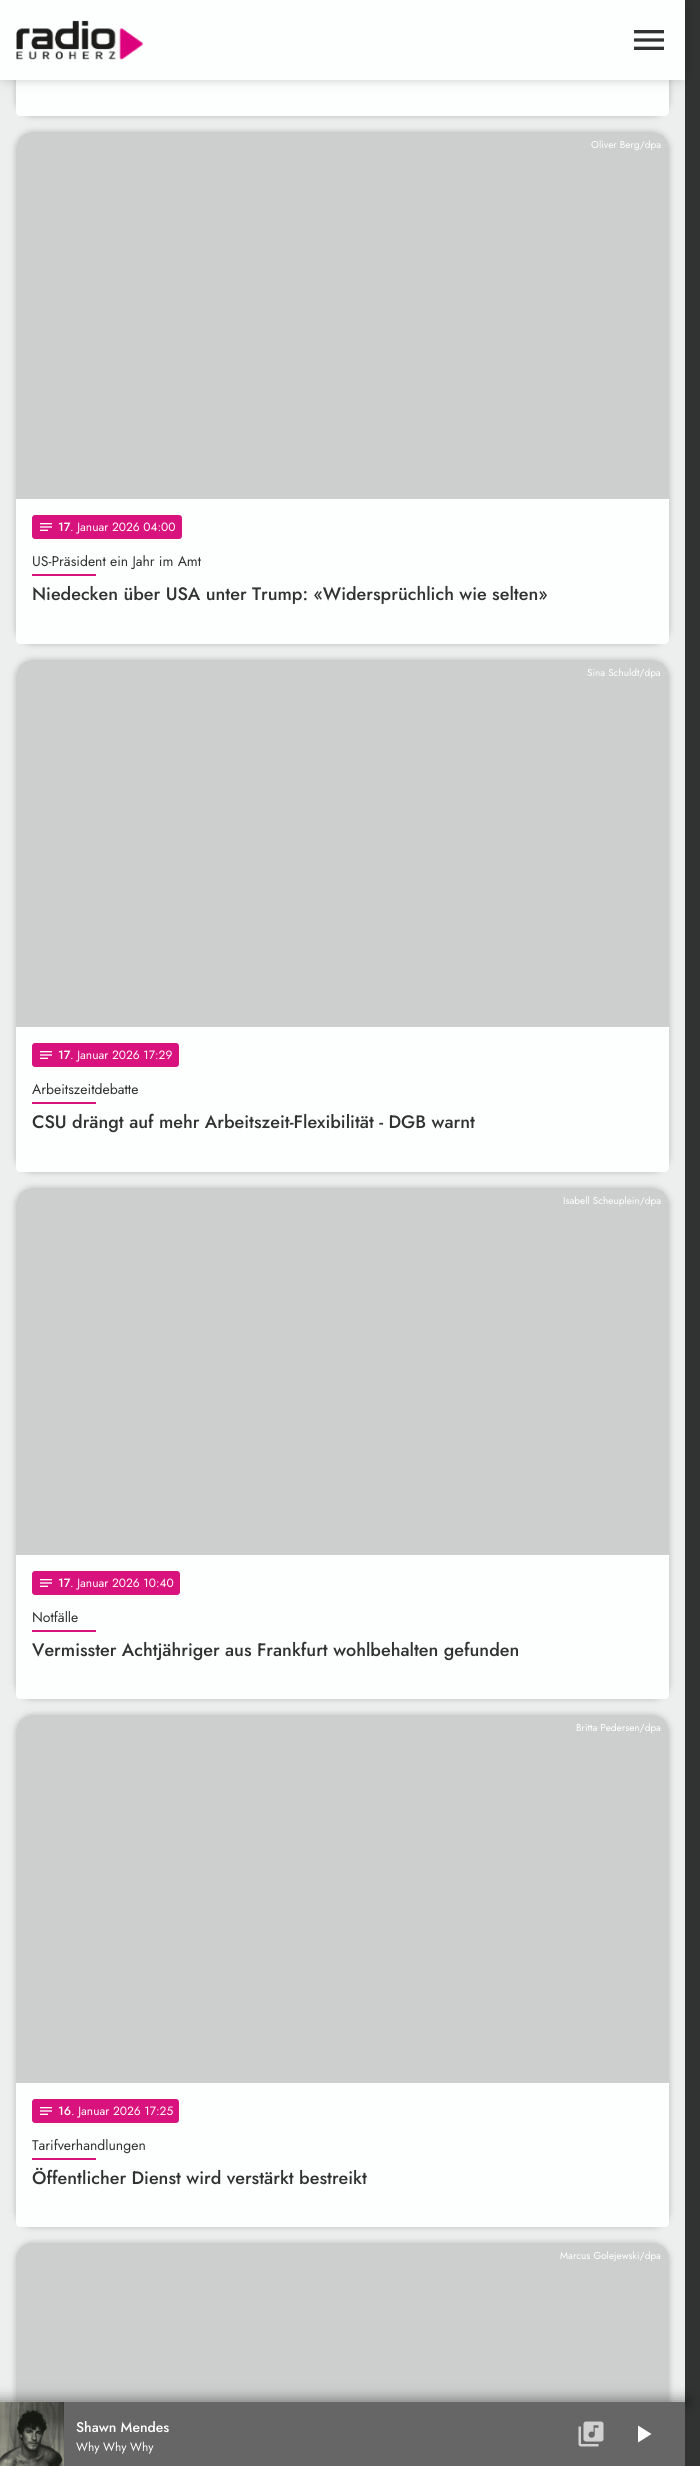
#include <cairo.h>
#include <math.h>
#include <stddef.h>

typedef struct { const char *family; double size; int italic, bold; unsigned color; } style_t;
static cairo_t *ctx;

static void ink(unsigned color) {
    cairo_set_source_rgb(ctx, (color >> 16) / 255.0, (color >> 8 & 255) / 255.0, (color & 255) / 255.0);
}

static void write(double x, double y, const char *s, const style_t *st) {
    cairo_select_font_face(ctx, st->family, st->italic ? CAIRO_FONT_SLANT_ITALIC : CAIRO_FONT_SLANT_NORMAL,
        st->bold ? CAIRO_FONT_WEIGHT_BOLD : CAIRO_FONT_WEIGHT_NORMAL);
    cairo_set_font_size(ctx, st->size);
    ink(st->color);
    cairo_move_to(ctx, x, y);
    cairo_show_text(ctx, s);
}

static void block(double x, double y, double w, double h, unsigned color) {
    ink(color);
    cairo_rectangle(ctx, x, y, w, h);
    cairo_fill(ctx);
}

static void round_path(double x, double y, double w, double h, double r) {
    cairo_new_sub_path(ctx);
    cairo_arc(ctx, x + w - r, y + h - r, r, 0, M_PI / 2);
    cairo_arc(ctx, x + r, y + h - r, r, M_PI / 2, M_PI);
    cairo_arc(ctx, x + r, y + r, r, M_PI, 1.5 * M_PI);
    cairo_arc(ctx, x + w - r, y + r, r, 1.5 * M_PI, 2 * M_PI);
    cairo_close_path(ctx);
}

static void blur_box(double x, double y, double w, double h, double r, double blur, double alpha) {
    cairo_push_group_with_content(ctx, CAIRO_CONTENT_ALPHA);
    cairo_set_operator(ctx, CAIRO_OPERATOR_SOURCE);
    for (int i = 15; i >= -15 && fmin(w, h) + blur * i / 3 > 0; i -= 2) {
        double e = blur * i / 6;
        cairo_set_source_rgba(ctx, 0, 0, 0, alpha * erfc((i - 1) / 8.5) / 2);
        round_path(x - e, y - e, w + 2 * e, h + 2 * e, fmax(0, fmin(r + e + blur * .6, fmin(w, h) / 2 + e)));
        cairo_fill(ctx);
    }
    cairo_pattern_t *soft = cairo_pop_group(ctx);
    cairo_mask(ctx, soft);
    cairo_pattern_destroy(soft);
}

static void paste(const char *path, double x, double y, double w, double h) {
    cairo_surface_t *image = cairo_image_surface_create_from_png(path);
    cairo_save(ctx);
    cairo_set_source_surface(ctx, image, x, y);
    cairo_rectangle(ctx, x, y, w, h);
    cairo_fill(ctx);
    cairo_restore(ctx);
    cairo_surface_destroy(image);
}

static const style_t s1 = {"Jost", 10, 0, 0, 0xffffff};
static const style_t s2 = {"Jost Medium", 12, 0, 0, 0xffffff};
static const style_t s3 = {"Jost", 12, 0, 0, 0xffffff};
static const style_t s4 = {"Jost", 14, 0, 0, 0x313333};
static const style_t s5 = {"Jost Medium", 18, 0, 0, 0x313333};
static const style_t s6 = {"Jost Medium", 14, 0, 0, 0xffffff};

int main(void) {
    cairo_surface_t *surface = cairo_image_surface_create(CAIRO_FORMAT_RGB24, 700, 2466);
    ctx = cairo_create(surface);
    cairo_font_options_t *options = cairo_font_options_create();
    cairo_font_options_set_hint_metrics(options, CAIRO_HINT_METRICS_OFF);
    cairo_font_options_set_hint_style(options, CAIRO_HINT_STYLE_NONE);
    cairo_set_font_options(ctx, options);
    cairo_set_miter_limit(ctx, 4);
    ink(0x313333);
    cairo_paint(ctx);
    block(0, 80, 685, 2322, 0xedefef);
    ink(0x000000);
    blur_box(18, -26, 649, 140, 14, 4, 0.4);
    ink(0xfdffff);
    cairo_new_path(ctx);
    cairo_move_to(ctx, 32, -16);
    cairo_line_to(ctx, 653, -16);
    cairo_curve_to(ctx, 662, -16, 669, -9, 669, 0);
    cairo_line_to(ctx, 669, 112);
    cairo_curve_to(ctx, 669, 114, 667, 116, 665, 116);
    cairo_line_to(ctx, 20, 116);
    cairo_curve_to(ctx, 18, 116, 16, 114, 16, 112);
    cairo_line_to(ctx, 16, 0);
    cairo_curve_to(ctx, 16, -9, 23, -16, 32, -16);
    cairo_close_path(ctx);
    cairo_fill(ctx);
    ink(0x000000);
    blur_box(5, 5, 675, 70, 0, 7.5, 0.4);
    block(0, 0, 685, 80, 0xfdffff);
    paste("pic1.png", 16, 20, 128, 40);
    paste("pic2.png", 634, 30, 30, 20);
    ink(0x000000);
    blur_box(18, 134, 649, 508, 14, 4, 0.4);
    ink(0xfdffff);
    cairo_new_path(ctx);
    cairo_move_to(ctx, 32, 132);
    cairo_line_to(ctx, 653, 132);
    cairo_curve_to(ctx, 662, 132, 669, 139, 669, 148);
    cairo_line_to(ctx, 669, 640);
    cairo_curve_to(ctx, 669, 642, 667, 644, 665, 644);
    cairo_line_to(ctx, 20, 644);
    cairo_curve_to(ctx, 18, 644, 16, 642, 16, 640);
    cairo_line_to(ctx, 16, 148);
    cairo_curve_to(ctx, 16, 139, 23, 132, 32, 132);
    cairo_close_path(ctx);
    cairo_fill(ctx);
    ink(0xcdcece);
    cairo_new_path(ctx);
    cairo_move_to(ctx, 32, 132);
    cairo_line_to(ctx, 653, 132);
    cairo_curve_to(ctx, 662, 132, 669, 139, 669, 148);
    cairo_line_to(ctx, 669, 499);
    cairo_line_to(ctx, 16, 499);
    cairo_line_to(ctx, 16, 148);
    cairo_curve_to(ctx, 16, 139, 23, 132, 32, 132);
    cairo_close_path(ctx);
    cairo_fill(ctx);
    write(591, 148, "Oliver Berg/dpa", &s1);
    ink(0xd8137d);
    round_path(32, 515, 150, 24, 3);
    cairo_fill(ctx);
    paste("pic3.png", 40, 523, 12, 8);
    write(58, 531, "17", &s2);
    write(70, 531, ". Januar 2026 04:00", &s3);
    write(32, 566, "US-Präsident ein Jahr im Amt", &s4);
    block(32, 574, 64, 2, 0xd8137d);
    write(32, 600, "Niedecken über USA unter Trump: «Widersprüchlich wie selten»", &s5);
    ink(0x000000);
    blur_box(18, 662, 649, 508, 14, 4, 0.4);
    ink(0xfdffff);
    cairo_new_path(ctx);
    cairo_move_to(ctx, 32, 660);
    cairo_line_to(ctx, 653, 660);
    cairo_curve_to(ctx, 662, 660, 669, 667, 669, 676);
    cairo_line_to(ctx, 669, 1168);
    cairo_curve_to(ctx, 669, 1170, 667, 1172, 665, 1172);
    cairo_line_to(ctx, 20, 1172);
    cairo_curve_to(ctx, 18, 1172, 16, 1170, 16, 1168);
    cairo_line_to(ctx, 16, 676);
    cairo_curve_to(ctx, 16, 667, 23, 660, 32, 660);
    cairo_close_path(ctx);
    cairo_fill(ctx);
    ink(0xcdcece);
    cairo_new_path(ctx);
    cairo_move_to(ctx, 32, 660);
    cairo_line_to(ctx, 653, 660);
    cairo_curve_to(ctx, 662, 660, 669, 667, 669, 676);
    cairo_line_to(ctx, 669, 1027);
    cairo_line_to(ctx, 16, 1027);
    cairo_line_to(ctx, 16, 676);
    cairo_curve_to(ctx, 16, 667, 23, 660, 32, 660);
    cairo_close_path(ctx);
    cairo_fill(ctx);
    write(587, 676, "Sina Schuldt/dpa", &s1);
    ink(0xd8137d);
    round_path(32, 1043, 147, 24, 3);
    cairo_fill(ctx);
    paste("pic3.png", 40, 1051, 12, 8);
    write(58, 1059, "17", &s2);
    write(70, 1059, ". Januar 2026 17:29", &s3);
    write(32, 1094, "Arbeitszeitdebatte", &s4);
    block(32, 1102, 64, 2, 0xd8137d);
    write(32, 1128, "CSU drängt auf mehr Arbeitszeit-Flexibilität - DGB warnt", &s5);
    ink(0x000000);
    blur_box(18, 1190, 649, 507, 14, 4, 0.4);
    ink(0xfdffff);
    cairo_new_path(ctx);
    cairo_move_to(ctx, 32, 1188);
    cairo_line_to(ctx, 653, 1188);
    cairo_curve_to(ctx, 662, 1188, 669, 1195, 669, 1204);
    cairo_line_to(ctx, 669, 1695);
    cairo_curve_to(ctx, 669, 1697, 667, 1699, 665, 1699);
    cairo_line_to(ctx, 20, 1699);
    cairo_curve_to(ctx, 18, 1699, 16, 1697, 16, 1695);
    cairo_line_to(ctx, 16, 1204);
    cairo_curve_to(ctx, 16, 1195, 23, 1188, 32, 1188);
    cairo_close_path(ctx);
    cairo_fill(ctx);
    ink(0xcdcece);
    cairo_new_path(ctx);
    cairo_move_to(ctx, 32, 1188);
    cairo_line_to(ctx, 653, 1188);
    cairo_curve_to(ctx, 662, 1188, 669, 1195, 669, 1204);
    cairo_line_to(ctx, 669, 1555);
    cairo_line_to(ctx, 16, 1555);
    cairo_line_to(ctx, 16, 1204);
    cairo_curve_to(ctx, 16, 1195, 23, 1188, 32, 1188);
    cairo_close_path(ctx);
    cairo_fill(ctx);
    write(563, 1204, "Isabell Scheuplein/dpa", &s1);
    ink(0xd8137d);
    round_path(32, 1571, 148, 24, 3);
    cairo_fill(ctx);
    paste("pic3.png", 40, 1579, 12, 8);
    write(58, 1587, "17", &s2);
    write(70, 1587, ". Januar 2026 10:40", &s3);
    write(32, 1622, "Notfälle", &s4);
    block(32, 1630, 64, 2, 0xd8137d);
    write(32, 1656, "Vermisster Achtjähriger aus Frankfurt wohlbehalten gefunden", &s5);
    ink(0x000000);
    blur_box(18, 1717, 649, 508, 14, 4, 0.4);
    ink(0xfdffff);
    cairo_new_path(ctx);
    cairo_move_to(ctx, 32, 1715);
    cairo_line_to(ctx, 653, 1715);
    cairo_curve_to(ctx, 662, 1715, 669, 1722, 669, 1731);
    cairo_line_to(ctx, 669, 2223);
    cairo_curve_to(ctx, 669, 2225, 667, 2227, 665, 2227);
    cairo_line_to(ctx, 20, 2227);
    cairo_curve_to(ctx, 18, 2227, 16, 2225, 16, 2223);
    cairo_line_to(ctx, 16, 1731);
    cairo_curve_to(ctx, 16, 1722, 23, 1715, 32, 1715);
    cairo_close_path(ctx);
    cairo_fill(ctx);
    ink(0xcdcece);
    cairo_new_path(ctx);
    cairo_move_to(ctx, 32, 1715);
    cairo_line_to(ctx, 653, 1715);
    cairo_curve_to(ctx, 662, 1715, 669, 1722, 669, 1731);
    cairo_line_to(ctx, 669, 2083);
    cairo_line_to(ctx, 16, 2083);
    cairo_line_to(ctx, 16, 1731);
    cairo_curve_to(ctx, 16, 1722, 23, 1715, 32, 1715);
    cairo_close_path(ctx);
    cairo_fill(ctx);
    write(576, 1731, "Britta Pedersen/dpa", &s1);
    ink(0xd8137d);
    round_path(32, 2099, 147, 24, 3);
    cairo_fill(ctx);
    paste("pic3.png", 40, 2107, 12, 8);
    write(58, 2115, "16", &s2);
    write(71, 2115, ". Januar 2026 17:25", &s3);
    write(32, 2150, "Tarifverhandlungen", &s4);
    block(32, 2158, 64, 2, 0xd8137d);
    write(32, 2184, "Öffentlicher Dienst wird verstärkt bestreikt", &s5);
    ink(0x000000);
    blur_box(18, 2245, 649, 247, 14, 4, 0.4);
    ink(0xcdcfcf);
    cairo_new_path(ctx);
    cairo_move_to(ctx, 32, 2243);
    cairo_line_to(ctx, 653, 2243);
    cairo_curve_to(ctx, 662, 2243, 669, 2250, 669, 2259);
    cairo_line_to(ctx, 669, 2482);
    cairo_line_to(ctx, 16, 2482);
    cairo_line_to(ctx, 16, 2259);
    cairo_curve_to(ctx, 16, 2250, 23, 2243, 32, 2243);
    cairo_close_path(ctx);
    cairo_fill(ctx);
    write(560, 2259, "Marcus Golejewski/dpa", &s1);
    ink(0x000000);
    blur_box(-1, 2401, 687, 2, 0, 7.5, 0.5);
    block(64, 2402, 621, 64, 0x666666);
    paste("pic4.png", 0, 2402, 64, 64);
    write(76, 2432, "Shawn Mendes", &s6);
    write(76, 2451, "Why Why Why", &s3);
    paste("pic5.png", 578, 2421, 26, 26);
    cairo_new_path(ctx);
    cairo_move_to(ctx, 638, 2425.5);
    cairo_line_to(ctx, 651.5, 2434);
    cairo_line_to(ctx, 638, 2442.5);
    cairo_close_path(ctx);
    cairo_fill(ctx);
    cairo_surface_write_to_png(surface, "screenshot.png");
    cairo_font_options_destroy(options);
    cairo_destroy(ctx);
    cairo_surface_destroy(surface);
    return 0;
}
